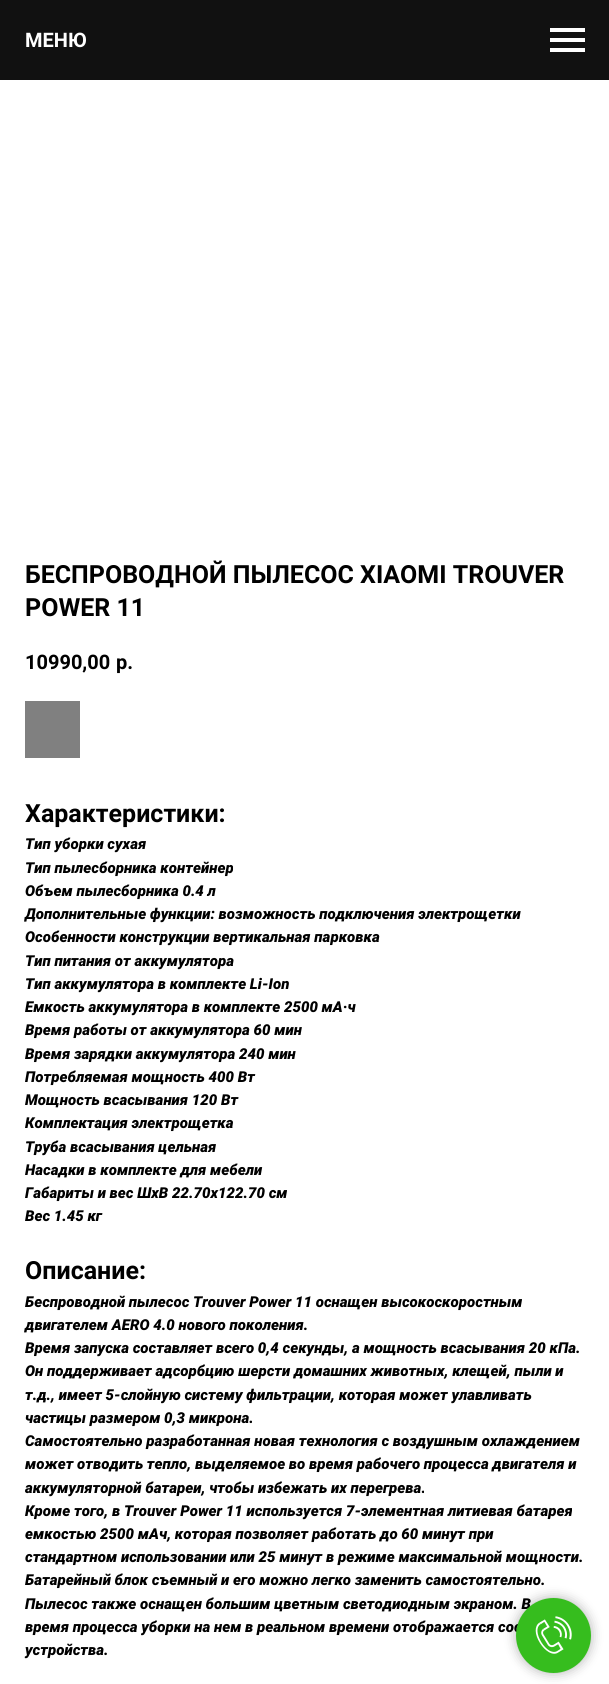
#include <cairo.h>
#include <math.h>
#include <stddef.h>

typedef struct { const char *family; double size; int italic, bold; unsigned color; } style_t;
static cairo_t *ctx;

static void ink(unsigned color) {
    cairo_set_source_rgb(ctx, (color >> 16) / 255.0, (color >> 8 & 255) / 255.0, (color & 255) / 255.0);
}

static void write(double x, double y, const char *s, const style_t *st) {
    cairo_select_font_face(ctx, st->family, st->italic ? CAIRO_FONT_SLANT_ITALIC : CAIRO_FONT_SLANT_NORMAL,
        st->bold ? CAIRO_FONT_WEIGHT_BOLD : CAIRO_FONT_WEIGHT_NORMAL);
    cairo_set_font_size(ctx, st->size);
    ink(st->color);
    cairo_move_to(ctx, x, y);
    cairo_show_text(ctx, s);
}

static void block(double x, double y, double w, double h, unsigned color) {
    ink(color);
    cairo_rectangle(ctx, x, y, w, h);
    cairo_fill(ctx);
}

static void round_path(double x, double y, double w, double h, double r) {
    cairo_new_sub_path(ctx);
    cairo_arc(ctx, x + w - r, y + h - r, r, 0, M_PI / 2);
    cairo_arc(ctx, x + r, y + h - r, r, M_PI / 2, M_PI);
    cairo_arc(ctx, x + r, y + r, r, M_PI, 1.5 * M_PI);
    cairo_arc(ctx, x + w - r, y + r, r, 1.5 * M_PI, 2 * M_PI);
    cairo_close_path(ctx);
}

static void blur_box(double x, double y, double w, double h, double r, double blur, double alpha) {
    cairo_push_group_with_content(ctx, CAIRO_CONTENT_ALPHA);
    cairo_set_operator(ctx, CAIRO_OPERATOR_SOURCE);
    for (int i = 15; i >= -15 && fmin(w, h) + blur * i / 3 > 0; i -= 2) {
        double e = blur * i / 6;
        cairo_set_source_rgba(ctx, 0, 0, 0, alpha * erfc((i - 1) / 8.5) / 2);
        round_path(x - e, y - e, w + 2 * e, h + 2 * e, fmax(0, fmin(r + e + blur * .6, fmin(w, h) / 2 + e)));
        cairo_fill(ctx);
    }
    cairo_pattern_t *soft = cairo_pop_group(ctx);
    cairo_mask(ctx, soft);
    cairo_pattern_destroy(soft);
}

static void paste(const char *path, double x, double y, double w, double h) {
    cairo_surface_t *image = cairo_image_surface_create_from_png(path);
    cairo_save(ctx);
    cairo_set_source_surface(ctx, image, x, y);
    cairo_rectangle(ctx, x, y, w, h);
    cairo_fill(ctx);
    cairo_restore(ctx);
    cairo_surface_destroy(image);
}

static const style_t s1 = {"Roboto", 20, 0, 1, 0xffffff};
static const style_t s2 = {"Roboto Black", 15, 1, 0, 0x000000};
static const style_t s3 = {"Roboto", 25, 0, 1, 0x000000};
static const style_t s4 = {"Roboto", 20, 0, 1, 0x000000};

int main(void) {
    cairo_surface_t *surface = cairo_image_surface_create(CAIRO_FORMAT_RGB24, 609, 1684);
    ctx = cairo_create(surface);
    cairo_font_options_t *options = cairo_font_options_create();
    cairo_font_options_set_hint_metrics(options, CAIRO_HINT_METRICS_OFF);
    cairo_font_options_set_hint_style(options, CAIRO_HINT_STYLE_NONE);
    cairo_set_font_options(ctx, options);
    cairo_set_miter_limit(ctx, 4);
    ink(0xffffff);
    cairo_paint(ctx);
    block(0, 0, 609, 80, 0x111111);
    write(25, 47, "МЕНЮ", &s1);
    block(550, 28, 35, 4, 0xffffff);
    block(550, 38, 35, 4, 0xffffff);
    block(550, 48, 35, 4, 0xffffff);
    ink(0x000000);
    blur_box(516, 1598, 75, 75, 37.5, 6, 0.3);
    write(25, 1609, "Пылесос также оснащен большим цветным светодиодным экраном. В", &s2);
    write(25, 1632, "время процесса уборки на нем в реальном времени отображается сос", &s2);
    ink(0x36bd1e);
    cairo_new_path(ctx);
    cairo_arc(ctx, 553.5, 1635.5, 37.5, 0, 2 * M_PI);
    cairo_fill(ctx);
    paste("pic1.png", 535, 1616, 37, 38);
    write(25, 583, "БЕСПРОВОДНОЙ ПЫЛЕСОС XIAOMI TROUVER", &s3);
    write(25, 616, "POWER 11", &s3);
    write(25, 669, "10990,00", &s4);
    write(116, 669, "р.", &s4);
    block(25, 701, 55, 57, 0x808080);
    write(25, 822, "Характеристики:", &s3);
    write(25, 849, "Тип уборки сухая", &s2);
    write(25, 873, "Тип пылесборника контейнер", &s2);
    write(25, 896, "Объем пылесборника 0.4 л", &s2);
    write(25, 919, "Дополнительные функции: возможность подключения электрощетки", &s2);
    write(25, 942, "Особенности конструкции вертикальная парковка", &s2);
    write(25, 966, "Тип питания от аккумулятора", &s2);
    write(25, 989, "Тип аккумулятора в комплекте Li-Ion", &s2);
    write(25, 1012, "Емкость аккумулятора в комплекте 2500 мА·ч", &s2);
    write(25, 1035, "Время работы от аккумулятора 60 мин", &s2);
    write(25, 1059, "Время зарядки аккумулятора 240 мин", &s2);
    write(25, 1082, "Потребляемая мощность 400 Вт", &s2);
    write(25, 1105, "Мощность всасывания 120 Вт", &s2);
    write(25, 1128, "Комплектация электрощетка", &s2);
    write(25, 1152, "Труба всасывания цельная", &s2);
    write(25, 1175, "Насадки в комплекте для мебели", &s2);
    write(25, 1198, "Габариты и вес ШхВ 22.70x122.70 см", &s2);
    write(25, 1221, "Вес 1.45 кг", &s2);
    write(25, 1279, "Описание:", &s3);
    write(25, 1307, "Беспроводной пылесос Trouver Power 11 оснащен высокоскоростным", &s2);
    write(25, 1330, "двигателем AERO 4.0 нового поколения.", &s2);
    write(25, 1353, "Время запуска составляет всего 0,4 секунды, а мощность всасывания 20 кПа.", &s2);
    write(25, 1376, "Он поддерживает адсорбцию шерсти домашних животных, клещей, пыли и", &s2);
    write(25, 1400, "т.д., имеет 5-слойную систему фильтрации, которая может улавливать", &s2);
    write(25, 1423, "частицы размером 0,3 микрона.", &s2);
    write(25, 1446, "Самостоятельно разработанная новая технология с воздушным охлаждением", &s2);
    write(25, 1469, "может отводить тепло, выделяемое во время рабочего процесса двигателя и", &s2);
    write(25, 1493, "аккумуляторной батареи, чтобы избежать их перегрева.", &s2);
    write(25, 1516, "Кроме того, в Trouver Power 11 используется 7-элементная литиевая батарея", &s2);
    write(25, 1539, "емкостью 2500 мАч, которая позволяет работать до 60 минут при", &s2);
    write(25, 1562, "стандартном использовании или 25 минут в режиме максимальной мощности.", &s2);
    write(25, 1585, "Батарейный блок съемный и его можно легко заменить самостоятельно.", &s2);
    write(25, 1655, "устройства.", &s2);
    cairo_surface_write_to_png(surface, "screenshot.png");
    cairo_font_options_destroy(options);
    cairo_destroy(ctx);
    cairo_surface_destroy(surface);
    return 0;
}
